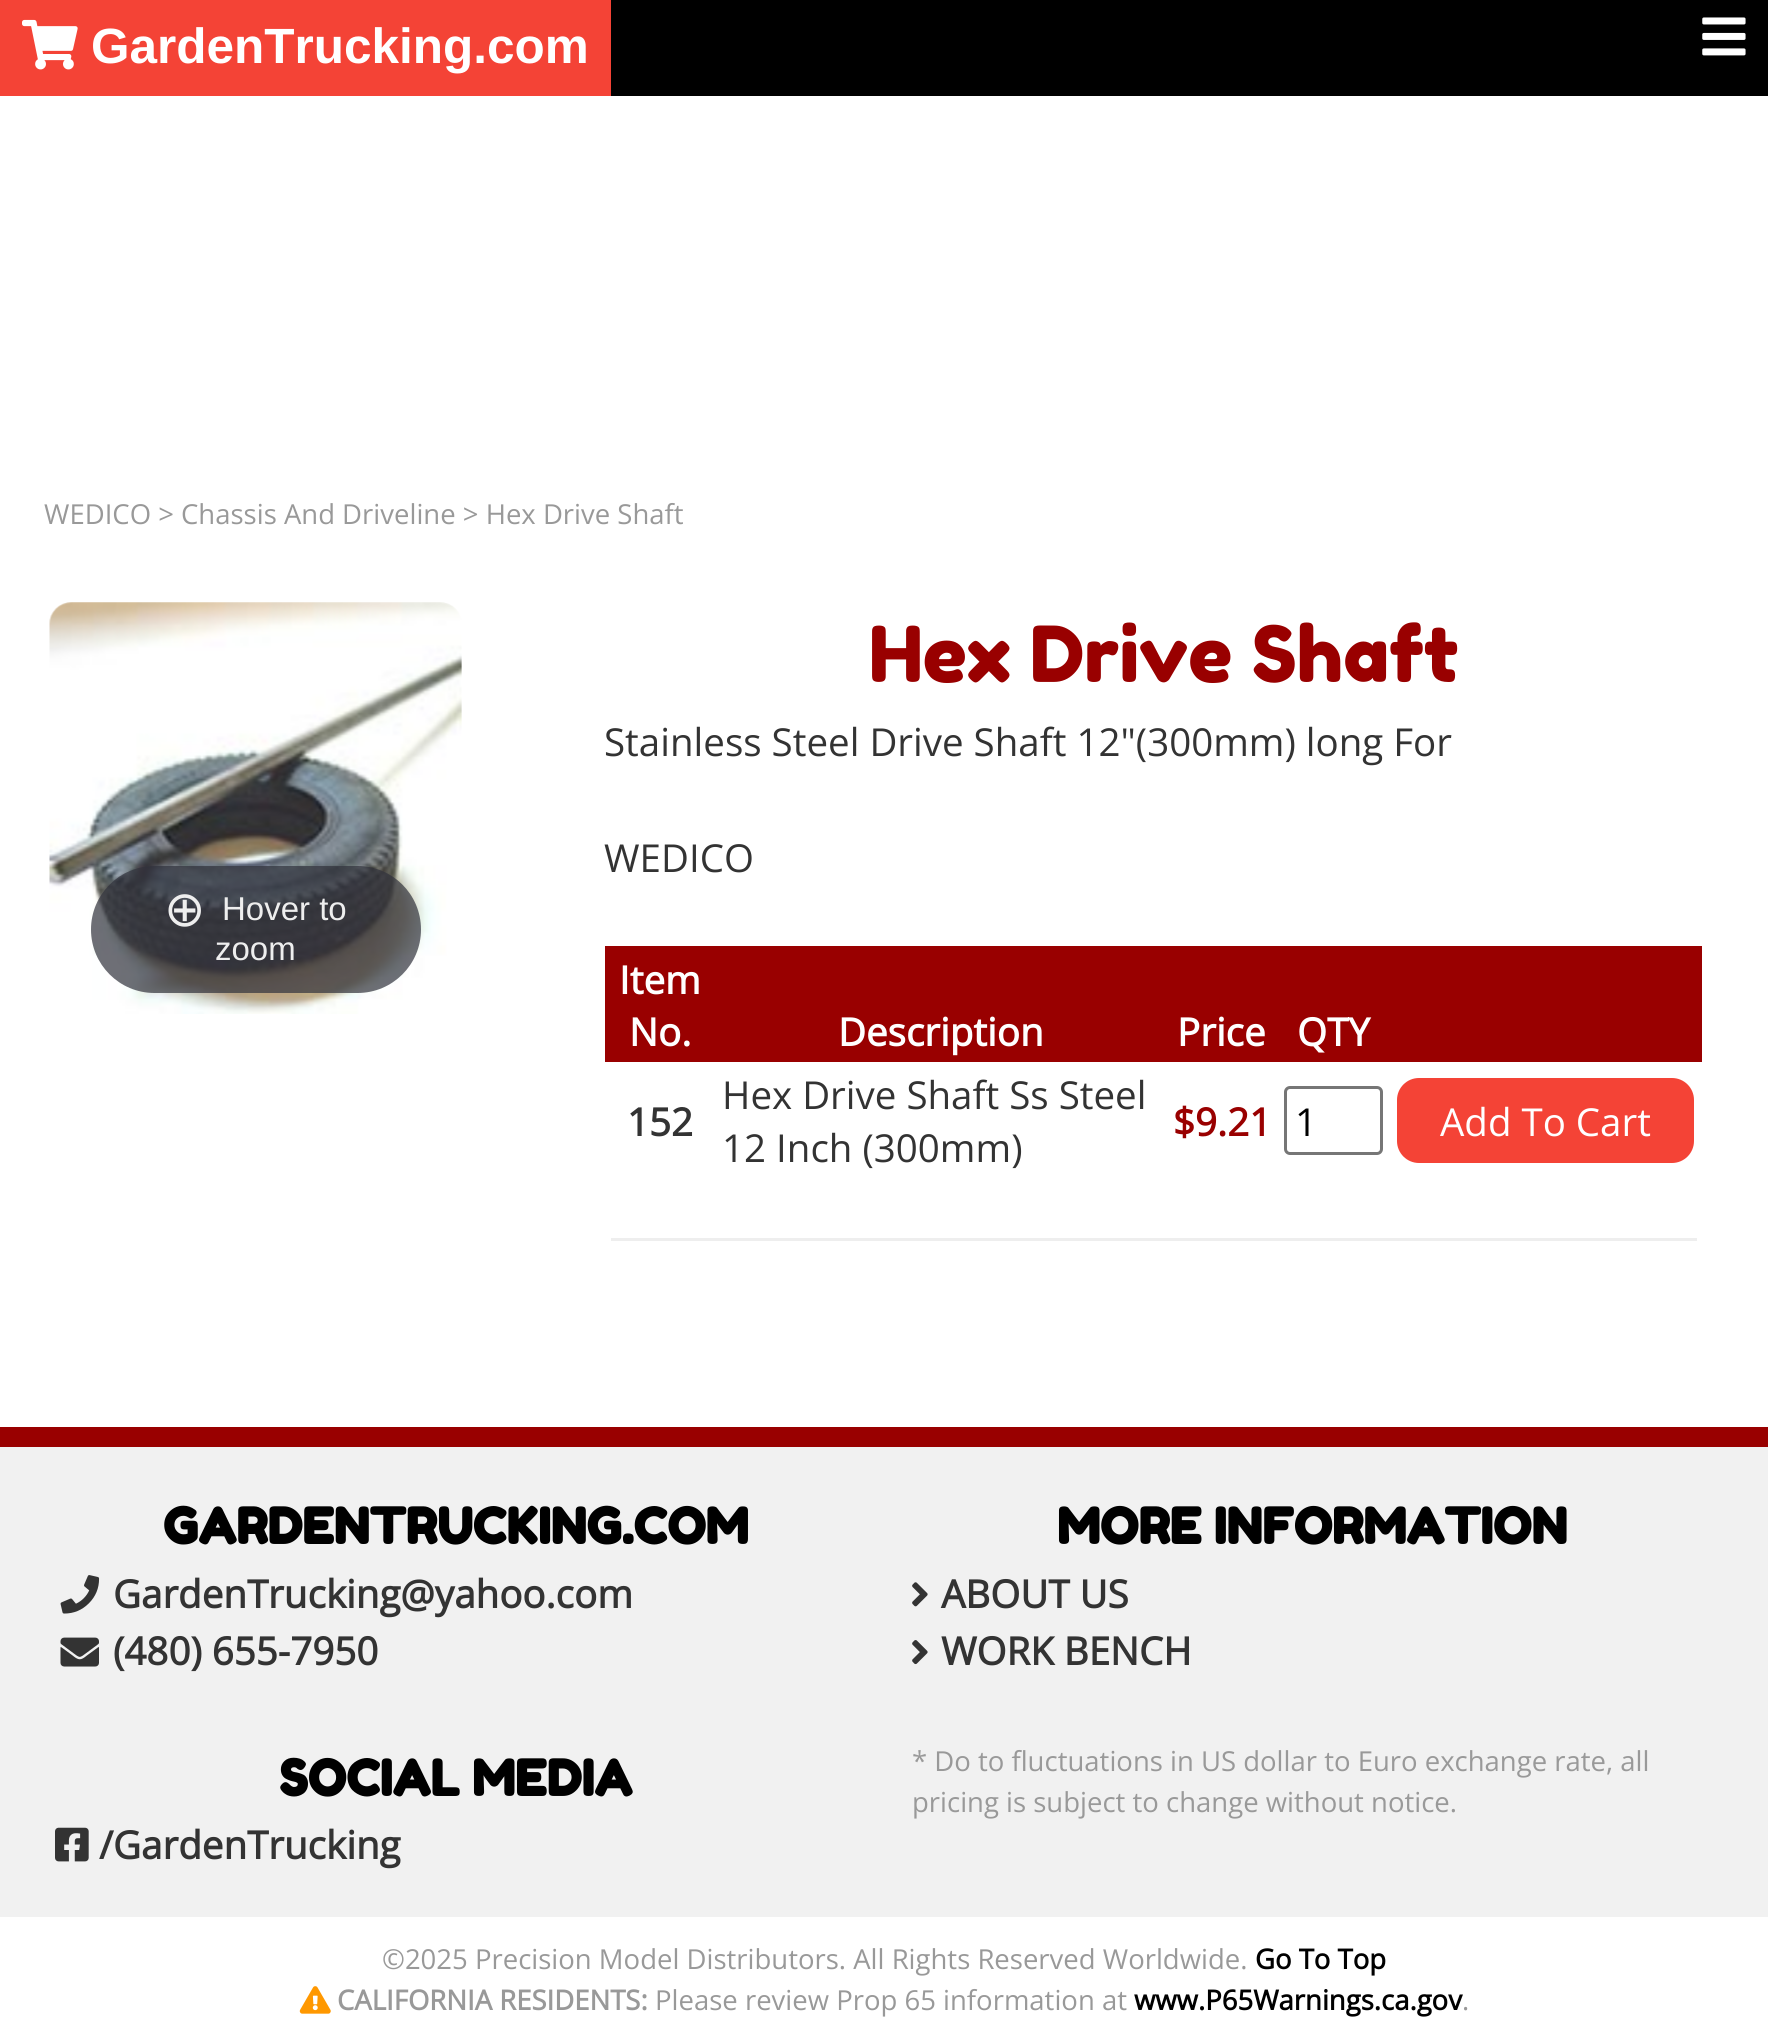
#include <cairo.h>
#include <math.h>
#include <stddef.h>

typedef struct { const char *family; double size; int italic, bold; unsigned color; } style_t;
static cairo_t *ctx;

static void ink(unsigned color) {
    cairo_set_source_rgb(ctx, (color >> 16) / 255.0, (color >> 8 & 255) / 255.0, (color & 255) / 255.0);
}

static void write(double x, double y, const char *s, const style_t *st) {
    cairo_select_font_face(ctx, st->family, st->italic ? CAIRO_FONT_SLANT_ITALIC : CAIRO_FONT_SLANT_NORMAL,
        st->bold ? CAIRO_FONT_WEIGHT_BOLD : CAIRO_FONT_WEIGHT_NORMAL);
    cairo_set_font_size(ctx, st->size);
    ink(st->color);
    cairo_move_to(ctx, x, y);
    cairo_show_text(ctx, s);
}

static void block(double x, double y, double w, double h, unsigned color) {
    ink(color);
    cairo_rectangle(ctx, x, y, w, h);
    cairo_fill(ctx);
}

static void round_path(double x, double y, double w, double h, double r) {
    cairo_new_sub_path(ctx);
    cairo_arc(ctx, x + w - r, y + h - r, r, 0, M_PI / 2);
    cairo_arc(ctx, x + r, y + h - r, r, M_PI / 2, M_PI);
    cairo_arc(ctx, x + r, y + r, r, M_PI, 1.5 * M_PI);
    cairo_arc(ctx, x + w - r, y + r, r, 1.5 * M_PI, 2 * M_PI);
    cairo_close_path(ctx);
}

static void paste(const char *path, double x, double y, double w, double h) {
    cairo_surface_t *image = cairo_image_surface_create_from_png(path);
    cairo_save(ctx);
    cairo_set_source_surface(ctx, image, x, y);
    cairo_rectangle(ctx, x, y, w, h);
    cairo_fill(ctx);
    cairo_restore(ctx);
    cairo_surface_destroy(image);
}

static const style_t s1 = {"Liberation Sans", 49.5, 0, 1, 0xffffff};
static const style_t s2 = {"Open Sans", 27.5, 0, 0, 0x999999};
static const style_t s3 = {"DejaVu Sans", 49.5, 0, 0, 0xeeeeee};
static const style_t s4 = {"Liberation Sans", 33, 0, 0, 0xeeeeee};
static const style_t s5 = {"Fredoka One", 77, 0, 0, 0x990000};
static const style_t s6 = {"Open Sans", 38.5, 0, 0, 0x333333};
static const style_t s7 = {"Open Sans", 38.5, 0, 1, 0xffffff};
static const style_t s8 = {"Open Sans", 38.5, 0, 1, 0x333333};
static const style_t s9 = {"Open Sans", 38.5, 0, 1, 0x990000};
static const style_t s10 = {"Open Sans", 38.5, 0, 0, 0x000000};
static const style_t s11 = {"Open Sans", 38.5, 0, 0, 0xffffff};
static const style_t s12 = {"Fredoka One", 49.5, 0, 1, 0x000000};
static const style_t s13 = {"Open Sans", 27.5, 0, 1, 0x000000};
static const style_t s14 = {"Open Sans", 27.5, 0, 1, 0x999999};

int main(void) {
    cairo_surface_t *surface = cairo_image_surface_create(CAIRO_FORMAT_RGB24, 1768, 2038);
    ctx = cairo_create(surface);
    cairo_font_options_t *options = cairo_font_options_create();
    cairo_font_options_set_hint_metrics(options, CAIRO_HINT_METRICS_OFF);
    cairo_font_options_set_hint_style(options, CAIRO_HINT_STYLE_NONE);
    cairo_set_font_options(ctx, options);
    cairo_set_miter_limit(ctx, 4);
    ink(0xffffff);
    cairo_paint(ctx);
    block(611, 0, 1157, 96, 0x000000);
    block(0, 0, 611, 96, 0xf44336);
    paste("pic1.png", 22, 19, 56, 51);
    write(91, 63, "GardenTrucking.com", &s1);
    paste("pic2.png", 1702, 17, 44, 39);
    write(44, 524, "WEDICO > Chassis And Driveline > Hex Drive Shaft", &s2);
    paste("pic3.png", 49, 602, 413, 412);
    cairo_set_source_rgba(ctx, 0.192, 0.2, 0.239, 0.7);
    round_path(91, 866, 330, 127, 63.5);
    cairo_fill(ctx);
    write(164, 926, "⊕", &s3);
    write(222, 920, "Hover to", &s4);
    write(215, 960, "zoom", &s4);
    write(869, 682, "Hex Drive Shaft", &s5);
    write(604, 756, "Stainless Steel Drive Shaft 12\"(300mm) long For", &s6);
    write(604, 872, "WEDICO", &s6);
    block(605, 946, 1097, 116, 0x990000);
    write(619, 994, "Item", &s7);
    write(629, 1046, "No.", &s7);
    write(838, 1046, "Description", &s7);
    write(1177, 1046, "Price", &s7);
    write(1297, 1046, "QTY", &s7);
    write(627, 1136, "152", &s8);
    write(722, 1109, "Hex Drive Shaft Ss Steel", &s6);
    write(722, 1162, "12 Inch (300mm)", &s6);
    write(1173, 1136, "$9.21", &s9);
    round_path(1285.5, 1087.5, 96, 66, 4.5);
    ink(0x767676);
    cairo_set_line_width(ctx, 3);
    cairo_stroke(ctx);
    write(1295, 1136, "1", &s10);
    ink(0xf44336);
    round_path(1397, 1078, 297, 85, 22);
    cairo_fill(ctx);
    write(1440, 1136, "Add To Cart", &s11);
    block(611, 1238, 1086, 3, 0xeeeeee);
    block(0, 1427, 1768, 20, 0x990000);
    block(0, 1447, 1768, 470, 0xf1f1f1);
    write(163, 1544, "GARDENTRUCKING.COM", &s12);
    paste("pic4.png", 60, 1575, 40, 39);
    write(113, 1608, "GardenTrucking@yahoo.com", &s8);
    paste("pic5.png", 60, 1637, 39, 30);
    write(113, 1665, "(480) 655-7950", &s8);
    write(279, 1796, "SOCIAL MEDIA", &s12);
    paste("pic6.png", 55, 1827, 34, 35);
    write(99, 1859, "/GardenTrucking", &s8);
    write(1057, 1544, "MORE INFORMATION", &s12);
    paste("pic7.png", 912, 1582, 16, 25);
    write(941, 1608, "ABOUT US", &s8);
    paste("pic8.png", 912, 1640, 16, 25);
    write(941, 1665, "WORK BENCH", &s8);
    write(912, 1771, "* Do to fluctuations in US dollar to Euro exchange rate, all", &s2);
    write(912, 1812, "pricing is subject to change without notice.", &s2);
    write(382, 1969, "©2025 Precision Model Distributors. All Rights Reserved Worldwide.", &s2);
    write(1255, 1969, "Go To Top", &s13);
    paste("pic9.png", 299, 1986, 32, 28);
    write(337, 2010, "CALIFORNIA RESIDENTS:", &s14);
    write(655, 2010, "Please review Prop 65 information at", &s2);
    write(1134, 2010, "www.P65Warnings.ca.gov", &s13);
    write(1462, 2010, ".", &s2);
    cairo_surface_write_to_png(surface, "screenshot.png");
    cairo_font_options_destroy(options);
    cairo_destroy(ctx);
    cairo_surface_destroy(surface);
    return 0;
}
